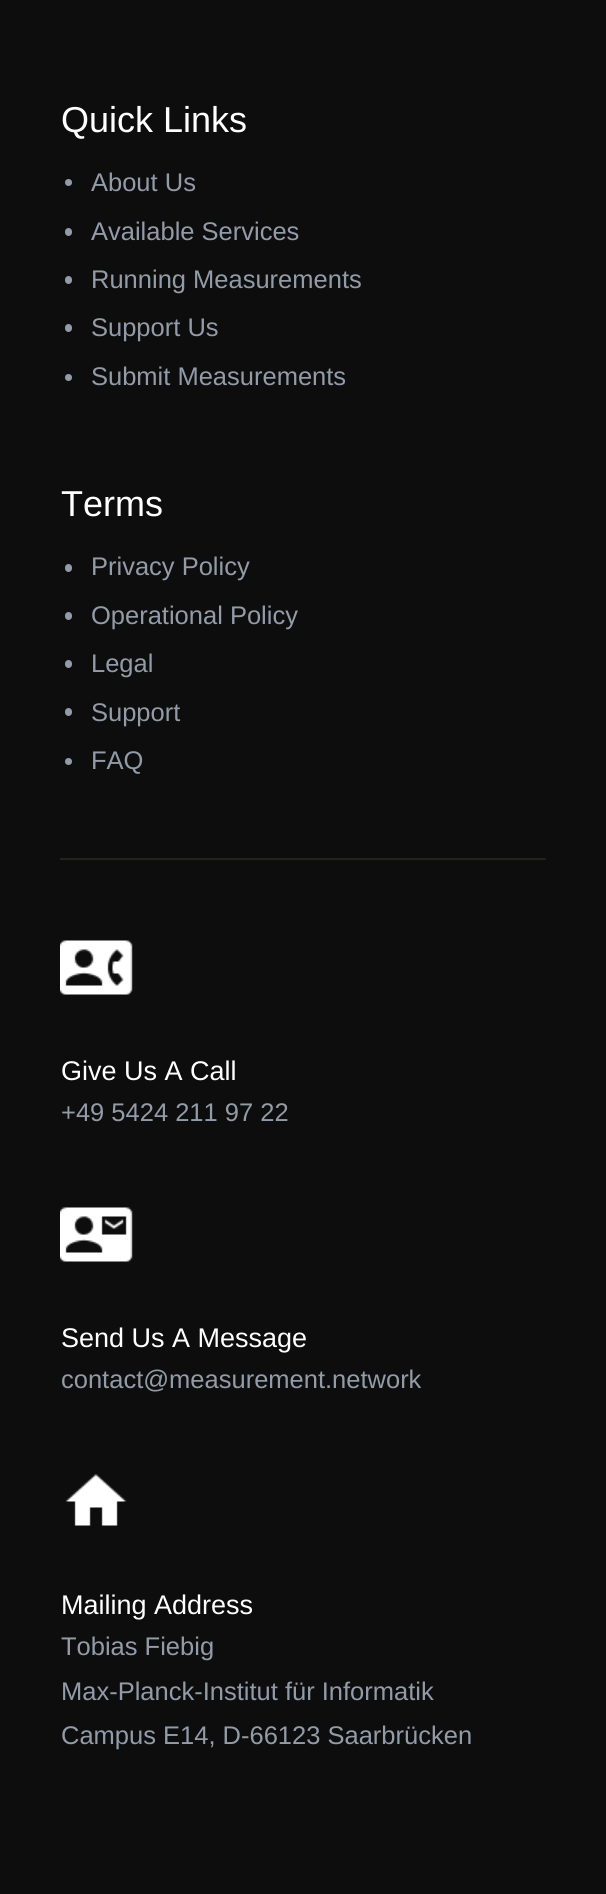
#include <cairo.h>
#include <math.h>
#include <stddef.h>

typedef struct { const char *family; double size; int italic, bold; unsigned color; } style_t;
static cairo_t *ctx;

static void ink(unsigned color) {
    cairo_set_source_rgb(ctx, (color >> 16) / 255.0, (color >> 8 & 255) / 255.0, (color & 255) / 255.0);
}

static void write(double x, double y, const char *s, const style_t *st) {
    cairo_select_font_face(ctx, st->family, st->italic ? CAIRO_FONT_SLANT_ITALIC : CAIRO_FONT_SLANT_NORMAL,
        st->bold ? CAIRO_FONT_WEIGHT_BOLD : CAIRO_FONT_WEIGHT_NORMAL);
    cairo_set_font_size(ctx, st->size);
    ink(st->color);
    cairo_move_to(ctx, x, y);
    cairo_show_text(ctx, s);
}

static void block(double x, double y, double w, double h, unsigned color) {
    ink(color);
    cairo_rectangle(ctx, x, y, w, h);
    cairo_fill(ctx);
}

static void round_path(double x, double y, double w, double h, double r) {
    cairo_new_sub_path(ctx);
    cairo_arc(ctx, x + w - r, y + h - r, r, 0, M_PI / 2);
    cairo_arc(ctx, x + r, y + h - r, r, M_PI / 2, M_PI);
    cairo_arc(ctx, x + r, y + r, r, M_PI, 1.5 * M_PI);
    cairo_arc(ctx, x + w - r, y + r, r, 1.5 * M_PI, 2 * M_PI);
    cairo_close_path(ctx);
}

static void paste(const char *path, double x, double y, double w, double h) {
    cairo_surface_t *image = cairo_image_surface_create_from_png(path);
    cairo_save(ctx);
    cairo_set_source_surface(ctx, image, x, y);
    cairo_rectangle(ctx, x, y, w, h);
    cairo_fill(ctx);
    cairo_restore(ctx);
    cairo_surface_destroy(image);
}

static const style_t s1 = {"Liberation Sans", 36, 0, 0, 0xffffff};
static const style_t s2 = {"Liberation Sans", 25.5, 0, 0, 0x929ba8};
static const style_t s3 = {"Liberation Sans", 27, 0, 0, 0xffffff};

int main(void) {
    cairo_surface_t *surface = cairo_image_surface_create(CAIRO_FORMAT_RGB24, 606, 1894);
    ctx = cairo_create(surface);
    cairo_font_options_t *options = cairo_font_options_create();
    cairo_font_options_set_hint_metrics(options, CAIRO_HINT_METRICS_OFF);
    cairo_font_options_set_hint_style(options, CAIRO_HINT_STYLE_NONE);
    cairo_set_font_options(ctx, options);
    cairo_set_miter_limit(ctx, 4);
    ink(0x0e0d0d);
    cairo_paint(ctx);
    write(61, 132, "Quick Links", &s1);
    ink(0x929ba8);
    cairo_new_path(ctx);
    cairo_arc(ctx, 68.5, 182.5, 3.5, 0, 2 * M_PI);
    cairo_fill(ctx);
    write(91, 191, "About Us", &s2);
    round_path(65, 228, 7, 8, 3.5);
    cairo_fill(ctx);
    write(91, 240, "Available Services", &s2);
    round_path(65, 276, 7, 8, 3.5);
    cairo_fill(ctx);
    write(91, 288, "Running Measurements", &s2);
    round_path(65, 324, 7, 8, 3.5);
    cairo_fill(ctx);
    write(91, 336, "Support Us", &s2);
    cairo_new_path(ctx);
    cairo_arc(ctx, 68.5, 377.5, 3.5, 0, 2 * M_PI);
    cairo_fill(ctx);
    write(91, 385, "Submit Measurements", &s2);
    write(61, 516, "Terms", &s1);
    ink(0x929ba8);
    round_path(65, 564, 7, 8, 3.5);
    cairo_fill(ctx);
    write(91, 575, "Privacy Policy", &s2);
    round_path(65, 612, 7, 8, 3.5);
    cairo_fill(ctx);
    write(91, 624, "Operational Policy", &s2);
    round_path(65, 660, 7, 8, 3.5);
    cairo_fill(ctx);
    write(91, 672, "Legal", &s2);
    round_path(65, 708, 7, 8, 3.5);
    cairo_fill(ctx);
    write(91, 721, "Support", &s2);
    cairo_new_path(ctx);
    cairo_arc(ctx, 68.5, 761.5, 3.5, 0, 2 * M_PI);
    cairo_fill(ctx);
    write(91, 769, "FAQ", &s2);
    block(60, 858, 486, 2, 0x24221f);
    paste("pic1.png", 60, 940, 73, 55);
    write(61, 1080, "Give Us A Call", &s3);
    write(61, 1121, "+49 5424 211 97 22", &s2);
    paste("pic2.png", 60, 1207, 73, 55);
    write(61, 1347, "Send Us A Message", &s3);
    write(61, 1388, "contact@measurement.network", &s2);
    paste("pic3.png", 65, 1474, 62, 52);
    write(61, 1614, "Mailing Address", &s3);
    write(61, 1655, "Tobias Fiebig", &s2);
    write(61, 1700, "Max-Planck-Institut für Informatik", &s2);
    write(61, 1744, "Campus E14, D-66123 Saarbrücken", &s2);
    cairo_surface_write_to_png(surface, "screenshot.png");
    cairo_font_options_destroy(options);
    cairo_destroy(ctx);
    cairo_surface_destroy(surface);
    return 0;
}
